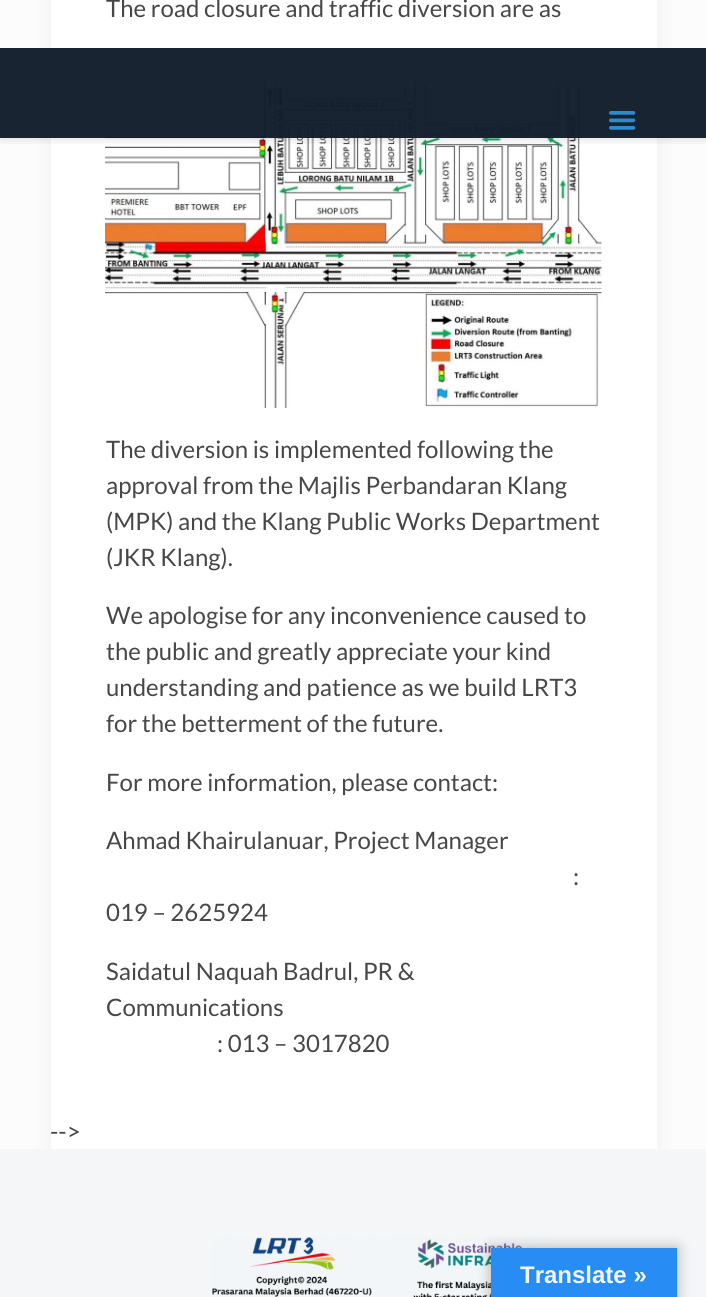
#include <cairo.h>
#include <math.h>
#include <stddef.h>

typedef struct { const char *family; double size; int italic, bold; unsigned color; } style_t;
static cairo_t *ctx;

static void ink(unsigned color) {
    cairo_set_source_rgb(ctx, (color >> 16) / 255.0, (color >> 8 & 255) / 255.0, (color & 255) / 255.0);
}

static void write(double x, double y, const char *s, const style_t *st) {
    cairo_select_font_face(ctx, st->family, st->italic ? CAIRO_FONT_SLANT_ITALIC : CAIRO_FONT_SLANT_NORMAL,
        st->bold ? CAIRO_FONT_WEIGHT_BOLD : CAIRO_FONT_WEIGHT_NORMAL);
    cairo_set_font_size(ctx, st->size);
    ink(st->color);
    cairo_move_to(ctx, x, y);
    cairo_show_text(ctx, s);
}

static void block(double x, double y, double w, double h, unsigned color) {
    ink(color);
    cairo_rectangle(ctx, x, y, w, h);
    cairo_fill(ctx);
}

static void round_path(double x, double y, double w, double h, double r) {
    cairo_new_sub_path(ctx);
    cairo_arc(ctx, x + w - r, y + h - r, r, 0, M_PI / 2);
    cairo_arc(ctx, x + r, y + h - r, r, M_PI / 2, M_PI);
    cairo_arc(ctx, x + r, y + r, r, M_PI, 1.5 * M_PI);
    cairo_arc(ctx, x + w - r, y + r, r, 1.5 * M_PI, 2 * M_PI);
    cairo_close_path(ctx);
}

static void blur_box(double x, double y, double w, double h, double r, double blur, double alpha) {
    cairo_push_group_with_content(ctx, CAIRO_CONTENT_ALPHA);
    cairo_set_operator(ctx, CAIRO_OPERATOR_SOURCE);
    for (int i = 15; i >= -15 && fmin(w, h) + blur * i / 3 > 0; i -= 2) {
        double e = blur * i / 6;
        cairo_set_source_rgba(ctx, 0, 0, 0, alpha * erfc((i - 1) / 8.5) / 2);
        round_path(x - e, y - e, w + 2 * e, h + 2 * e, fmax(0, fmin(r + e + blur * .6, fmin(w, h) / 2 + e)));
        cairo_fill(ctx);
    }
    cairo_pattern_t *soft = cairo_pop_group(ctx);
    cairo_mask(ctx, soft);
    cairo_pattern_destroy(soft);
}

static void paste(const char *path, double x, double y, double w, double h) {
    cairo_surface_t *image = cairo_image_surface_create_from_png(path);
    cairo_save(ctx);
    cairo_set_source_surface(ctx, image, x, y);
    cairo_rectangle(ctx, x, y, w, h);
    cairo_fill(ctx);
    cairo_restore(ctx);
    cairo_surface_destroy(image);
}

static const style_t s1 = {"Lato", 24, 0, 0, 0x474747};
static const style_t s2 = {"Liberation Sans", 24, 0, 1, 0xf4f4f4};

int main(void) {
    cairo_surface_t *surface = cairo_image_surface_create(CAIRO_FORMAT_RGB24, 706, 1297);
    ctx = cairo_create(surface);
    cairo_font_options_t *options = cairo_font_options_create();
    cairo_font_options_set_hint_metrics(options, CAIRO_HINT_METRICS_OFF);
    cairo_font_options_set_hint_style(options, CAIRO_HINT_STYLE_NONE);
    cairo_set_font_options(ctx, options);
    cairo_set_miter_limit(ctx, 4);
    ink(0xfcfcfc);
    cairo_paint(ctx);
    ink(0x000000);
    blur_box(51, -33, 606, 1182, 0, 11, 0.06);
    block(51, 0, 606, 1149, 0xffffff);
    write(106, 17, "The road closure and traffic diversion are as", &s1);
    paste("pic1.png", 105, 84, 497, 324);
    write(106, 458, "The diversion is implemented following the", &s1);
    write(106, 494, "approval from the Majlis Perbandaran Klang", &s1);
    write(106, 530, "(MPK) and the Klang Public Works Department", &s1);
    write(106, 566, "(JKR Klang).", &s1);
    write(106, 624, "We apologise for any inconvenience caused to", &s1);
    write(106, 660, "the public and greatly appreciate your kind", &s1);
    write(106, 696, "understanding and patience as we build LRT3", &s1);
    write(106, 732, "for the betterment of the future.", &s1);
    write(106, 791, "For more information, please contact:", &s1);
    write(106, 849, "Ahmad Khairulanuar, Project Manager", &s1);
    write(573, 885, ":", &s1);
    write(106, 921, "019 – 2625924", &s1);
    write(106, 980, "Saidatul Naquah Badrul, PR &", &s1);
    write(106, 1016, "Communications", &s1);
    write(217, 1052, ": 013 – 3017820", &s1);
    write(50, 1140, "-->", &s1);
    cairo_save(ctx);
    cairo_rectangle(ctx, 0, 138, 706, 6);
    cairo_clip(ctx);
    ink(0x000000);
    blur_box(0, 51, 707, 90, 0, 4, 0.1);
    cairo_restore(ctx);
    cairo_set_source_rgba(ctx, 0.071, 0.118, 0.176, 0.97);
    cairo_rectangle(ctx, 0, 48, 706, 90);
    cairo_fill(ctx);
    paste("pic2.png", 609, 111, 27, 19);
    block(0, 1149, 706, 148, 0xf4f6f8);
    paste("pic3.png", 212, 1237, 340, 60);
    ink(0x000000);
    blur_box(491, 1248, 186, 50, 0, 7, 0.3);
    block(491, 1248, 186, 49, 0x278df4);
    write(520, 1283, "Translate »", &s2);
    cairo_surface_write_to_png(surface, "screenshot.png");
    cairo_font_options_destroy(options);
    cairo_destroy(ctx);
    cairo_surface_destroy(surface);
    return 0;
}
